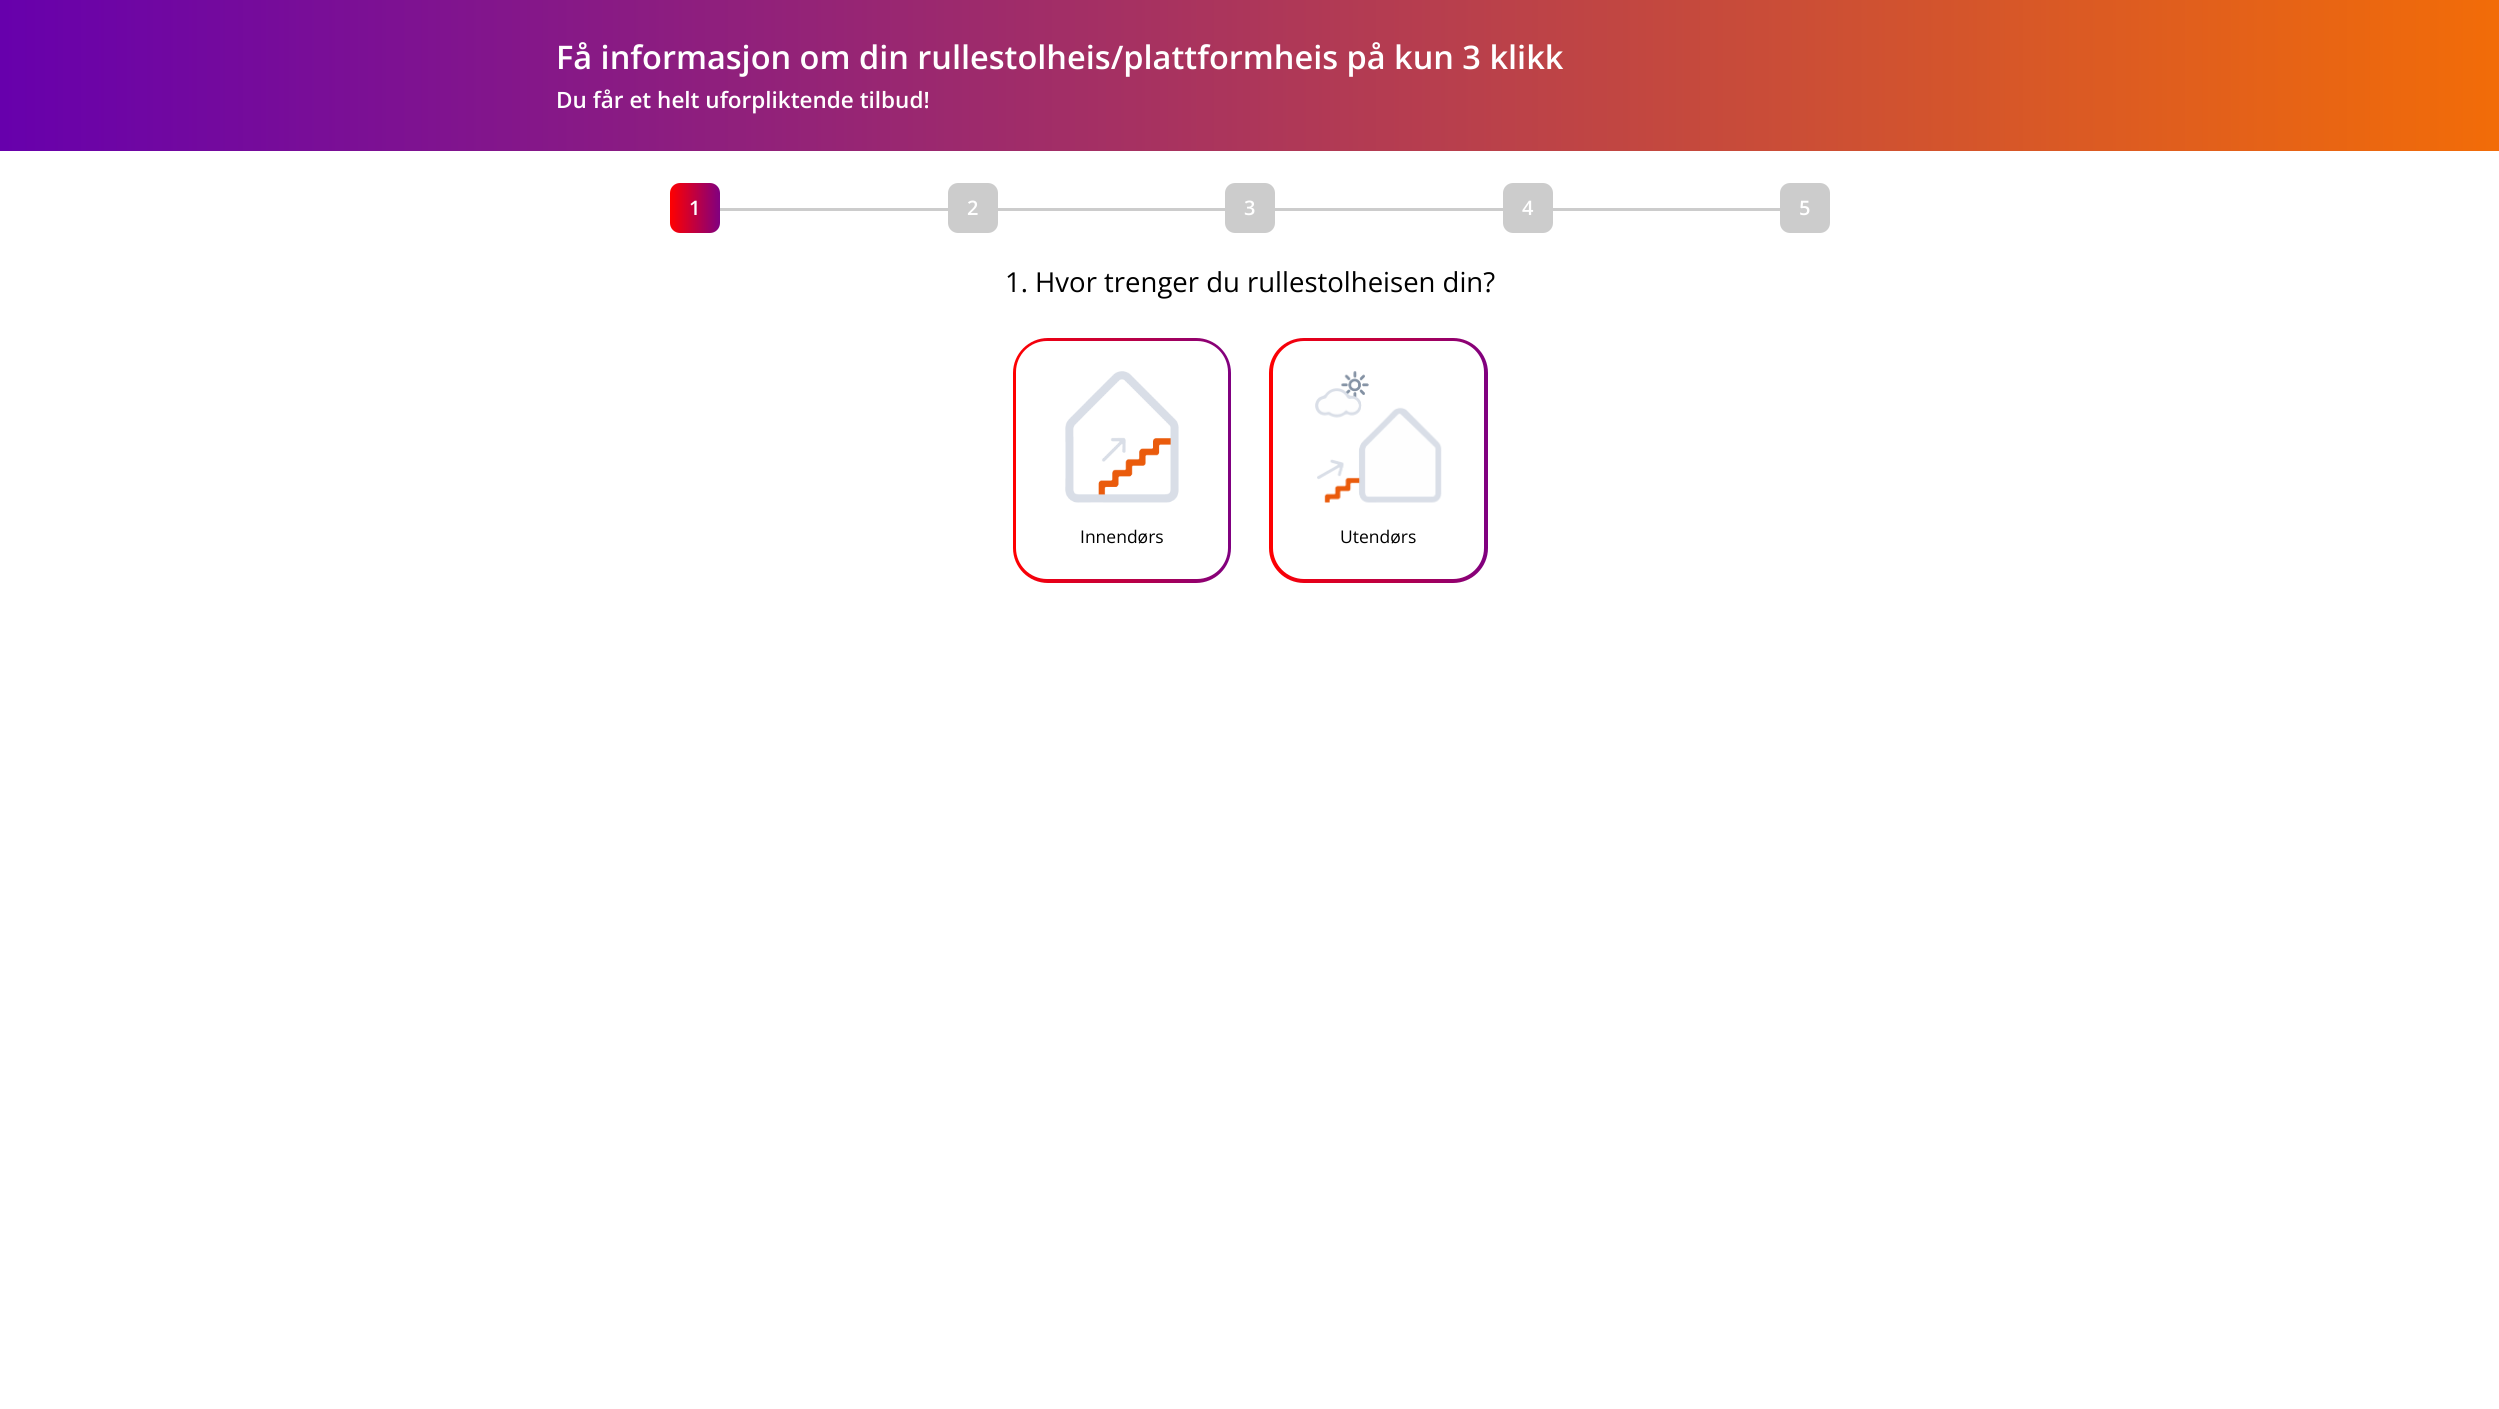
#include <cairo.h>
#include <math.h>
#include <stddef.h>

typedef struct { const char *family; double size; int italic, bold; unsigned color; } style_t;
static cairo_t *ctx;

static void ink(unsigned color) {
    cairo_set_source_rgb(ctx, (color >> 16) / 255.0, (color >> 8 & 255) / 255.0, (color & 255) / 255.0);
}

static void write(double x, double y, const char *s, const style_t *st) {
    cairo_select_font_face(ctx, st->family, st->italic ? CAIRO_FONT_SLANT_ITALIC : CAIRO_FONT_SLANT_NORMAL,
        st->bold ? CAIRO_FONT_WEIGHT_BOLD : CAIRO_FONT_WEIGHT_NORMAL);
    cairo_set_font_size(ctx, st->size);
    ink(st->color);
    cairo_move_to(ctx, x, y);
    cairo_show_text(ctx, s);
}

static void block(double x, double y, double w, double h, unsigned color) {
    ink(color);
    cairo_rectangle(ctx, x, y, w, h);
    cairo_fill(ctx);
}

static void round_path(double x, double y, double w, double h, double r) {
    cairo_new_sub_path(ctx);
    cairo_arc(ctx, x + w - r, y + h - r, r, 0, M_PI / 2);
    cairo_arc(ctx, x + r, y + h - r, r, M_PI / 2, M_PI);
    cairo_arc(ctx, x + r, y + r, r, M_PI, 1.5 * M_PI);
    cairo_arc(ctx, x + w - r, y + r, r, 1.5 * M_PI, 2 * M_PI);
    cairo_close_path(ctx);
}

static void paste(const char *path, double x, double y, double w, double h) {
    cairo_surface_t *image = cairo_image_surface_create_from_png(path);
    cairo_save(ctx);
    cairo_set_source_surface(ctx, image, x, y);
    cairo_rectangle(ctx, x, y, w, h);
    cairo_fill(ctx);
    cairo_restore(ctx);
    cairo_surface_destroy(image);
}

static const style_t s1 = {"Open Sans SemiBold", 32.5, 0, 0, 0xffffff};
static const style_t s2 = {"Open Sans SemiBold", 22.5, 0, 0, 0xffffff};
static const style_t s3 = {"Open Sans SemiBold", 20, 0, 0, 0xffffff};
static const style_t s4 = {"Open Sans", 27.5, 0, 0, 0x000000};
static const style_t s5 = {"Open Sans", 17.5, 0, 0, 0x000000};

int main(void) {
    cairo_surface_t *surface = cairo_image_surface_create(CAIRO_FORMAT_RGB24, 2499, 1409);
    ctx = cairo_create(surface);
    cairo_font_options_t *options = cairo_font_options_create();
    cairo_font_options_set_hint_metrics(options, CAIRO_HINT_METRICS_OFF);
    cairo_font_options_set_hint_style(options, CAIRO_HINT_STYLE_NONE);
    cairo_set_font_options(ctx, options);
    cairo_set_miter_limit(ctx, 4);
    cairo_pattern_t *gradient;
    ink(0xffffff);
    cairo_paint(ctx);
    gradient = cairo_pattern_create_linear(0, 76, 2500, 76);
    cairo_pattern_add_color_stop_rgba(gradient, 0, 0.404, 0, 0.675, 1);
    cairo_pattern_add_color_stop_rgba(gradient, 1, 0.949, 0.424, 0.031, 1);
    cairo_set_source(ctx, gradient);
    cairo_pattern_destroy(gradient);
    cairo_rectangle(ctx, 0, 0, 2499, 151);
    cairo_fill(ctx);
    write(556, 69, "Få informasjon om din rullestolheis/plattformheis på kun 3 klikk", &s1);
    write(556, 108, "Du får et helt uforpliktende tilbud!", &s2);
    gradient = cairo_pattern_create_linear(670, 208, 720, 208);
    cairo_pattern_add_color_stop_rgba(gradient, 0, 1, 0, 0, 1);
    cairo_pattern_add_color_stop_rgba(gradient, 1, 0.502, 0, 0.502, 1);
    cairo_set_source(ctx, gradient);
    cairo_pattern_destroy(gradient);
    round_path(670, 183, 50, 50, 10);
    cairo_fill(ctx);
    write(689, 215, "1", &s3);
    block(720, 208, 228, 3, 0xcccccc);
    round_path(948, 183, 50, 50, 10);
    cairo_fill(ctx);
    write(967, 215, "2", &s3);
    block(998, 208, 227, 3, 0xcccccc);
    round_path(1225, 183, 50, 50, 10);
    cairo_fill(ctx);
    write(1244, 215, "3", &s3);
    block(1275, 208, 228, 3, 0xcccccc);
    round_path(1503, 183, 50, 50, 10);
    cairo_fill(ctx);
    write(1522, 215, "4", &s3);
    block(1553, 208, 227, 3, 0xcccccc);
    round_path(1780, 183, 50, 50, 10);
    cairo_fill(ctx);
    write(1799, 215, "5", &s3);
    write(1005, 292, "1. Hvor trenger du rullestolheisen din?", &s4);
    gradient = cairo_pattern_create_linear(1013, 460, 1231, 460);
    cairo_pattern_add_color_stop_rgba(gradient, 0, 1, 0, 0, 1);
    cairo_pattern_add_color_stop_rgba(gradient, 1, 0.502, 0, 0.502, 1);
    cairo_set_source(ctx, gradient);
    cairo_pattern_destroy(gradient);
    round_path(1013, 338, 218, 245, 35);
    cairo_fill(ctx);
    ink(0xffffff);
    round_path(1016, 341, 212, 238, 31);
    cairo_fill(ctx);
    paste("pic1.png", 1065, 371, 114, 132);
    write(1080, 543, "Innendørs", &s5);
    gradient = cairo_pattern_create_linear(1269, 460, 1488, 460);
    cairo_pattern_add_color_stop_rgba(gradient, 0, 1, 0, 0, 1);
    cairo_pattern_add_color_stop_rgba(gradient, 1, 0.502, 0, 0.502, 1);
    cairo_set_source(ctx, gradient);
    cairo_pattern_destroy(gradient);
    round_path(1269, 338, 219, 245, 35);
    cairo_fill(ctx);
    ink(0xffffff);
    round_path(1273, 341, 211, 238, 31);
    cairo_fill(ctx);
    paste("pic2.png", 1315, 371, 127, 132);
    write(1340, 543, "Utendørs", &s5);
    cairo_surface_write_to_png(surface, "screenshot.png");
    cairo_font_options_destroy(options);
    cairo_destroy(ctx);
    cairo_surface_destroy(surface);
    return 0;
}
